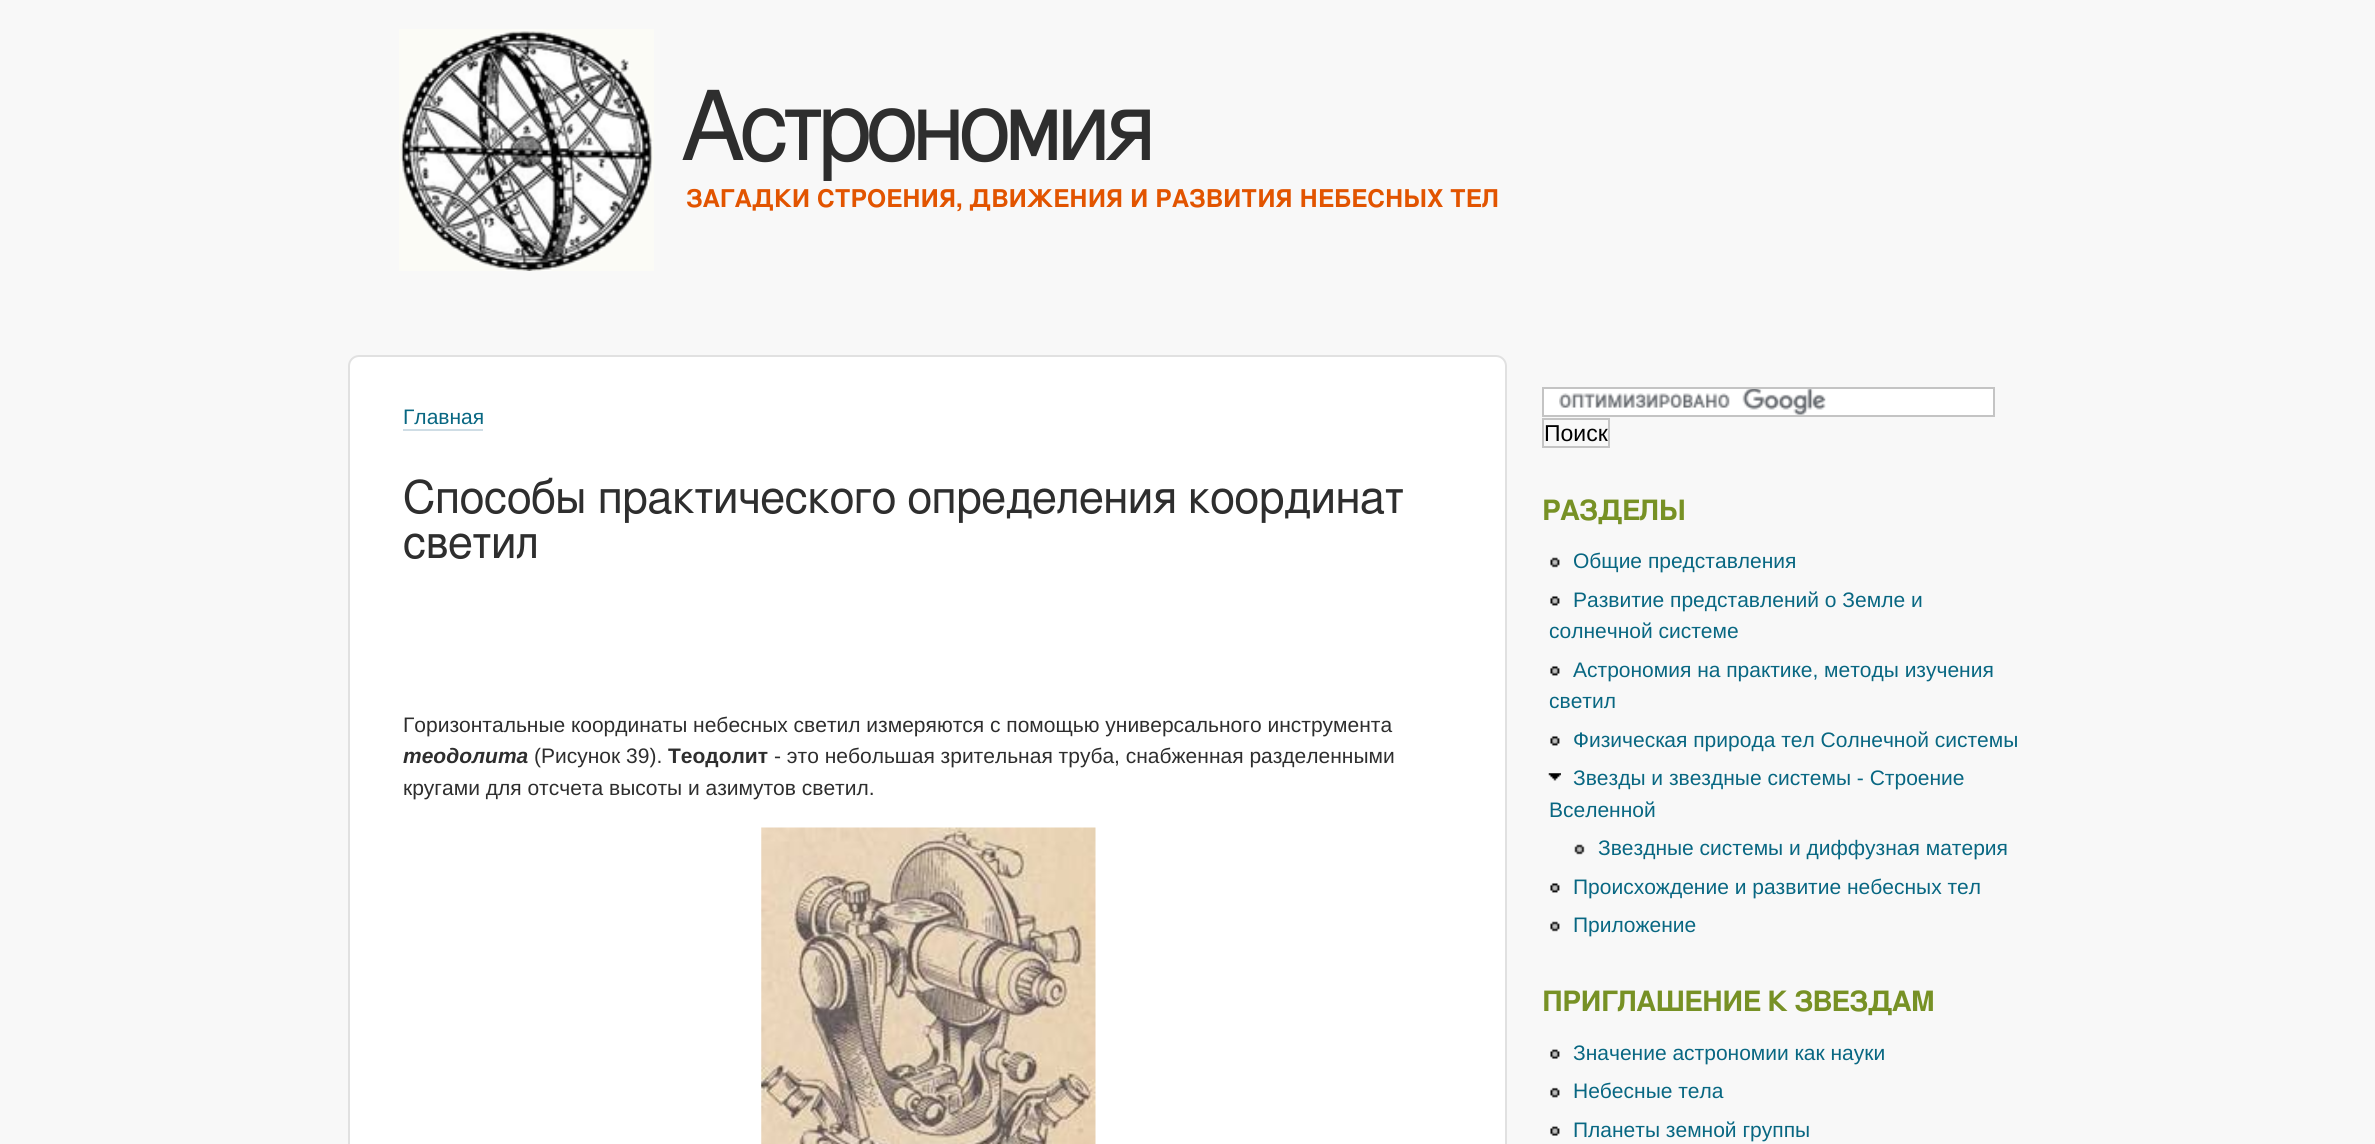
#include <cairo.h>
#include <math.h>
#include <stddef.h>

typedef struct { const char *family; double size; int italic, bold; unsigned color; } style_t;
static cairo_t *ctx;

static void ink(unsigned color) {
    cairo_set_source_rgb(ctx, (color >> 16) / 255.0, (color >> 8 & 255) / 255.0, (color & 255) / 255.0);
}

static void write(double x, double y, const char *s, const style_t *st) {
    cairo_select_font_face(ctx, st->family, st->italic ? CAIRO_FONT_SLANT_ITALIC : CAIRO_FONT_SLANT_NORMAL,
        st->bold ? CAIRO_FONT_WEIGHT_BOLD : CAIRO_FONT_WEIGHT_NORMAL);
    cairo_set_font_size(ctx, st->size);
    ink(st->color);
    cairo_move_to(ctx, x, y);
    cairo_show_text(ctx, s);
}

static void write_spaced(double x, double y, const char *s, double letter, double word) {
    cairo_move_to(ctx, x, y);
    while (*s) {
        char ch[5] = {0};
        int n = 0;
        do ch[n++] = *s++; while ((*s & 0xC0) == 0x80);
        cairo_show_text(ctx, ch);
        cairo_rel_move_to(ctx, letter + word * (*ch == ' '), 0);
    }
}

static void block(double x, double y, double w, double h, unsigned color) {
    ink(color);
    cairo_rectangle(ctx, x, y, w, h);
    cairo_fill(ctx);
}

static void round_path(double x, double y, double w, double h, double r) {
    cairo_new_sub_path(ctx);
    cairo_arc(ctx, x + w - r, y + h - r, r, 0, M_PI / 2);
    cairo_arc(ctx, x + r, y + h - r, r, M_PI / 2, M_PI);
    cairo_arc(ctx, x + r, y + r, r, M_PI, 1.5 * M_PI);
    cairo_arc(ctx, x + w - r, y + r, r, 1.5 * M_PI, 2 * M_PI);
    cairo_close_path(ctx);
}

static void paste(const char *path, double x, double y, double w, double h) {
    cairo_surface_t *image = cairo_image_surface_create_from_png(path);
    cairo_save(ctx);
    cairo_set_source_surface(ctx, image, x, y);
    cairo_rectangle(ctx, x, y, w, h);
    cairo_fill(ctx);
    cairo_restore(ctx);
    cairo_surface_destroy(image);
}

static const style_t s1 = {"FreeSans SemiBold", 24.5, 0, 0, 0xe25400};
static const style_t s2 = {"Liberation Sans", 21, 0, 0, 0x086782};
static const style_t s3 = {"FreeSans", 45.5, 0, 0, 0x2e2e2e};
static const style_t s4 = {"Liberation Sans", 21, 0, 0, 0x2e2e2e};
static const style_t s5 = {"Liberation Sans", 21, 1, 1, 0x2e2e2e};
static const style_t s6 = {"Liberation Sans", 21, 0, 1, 0x2e2e2e};
static const style_t s7 = {"Liberation Sans", 23, 0, 0, 0x000000};

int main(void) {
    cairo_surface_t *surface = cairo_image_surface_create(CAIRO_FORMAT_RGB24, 2375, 1144);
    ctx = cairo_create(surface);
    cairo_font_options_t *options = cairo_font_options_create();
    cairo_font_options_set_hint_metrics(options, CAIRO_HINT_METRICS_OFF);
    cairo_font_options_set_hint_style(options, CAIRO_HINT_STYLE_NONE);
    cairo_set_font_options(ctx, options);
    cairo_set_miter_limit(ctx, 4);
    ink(0xf8f8f8);
    cairo_paint(ctx);
    paste("pic1.png", 399, 29, 255, 242);
    cairo_select_font_face(ctx, "FreeSans", CAIRO_FONT_SLANT_NORMAL, CAIRO_FONT_WEIGHT_NORMAL);
    cairo_set_font_size(ctx, 96.25);
    ink(0x2e2e2e);
    write_spaced(681, 160, "Астрономия", -5.25, 0);
    write(686, 207, "ЗАГАДКИ СТРОЕНИЯ, ДВИЖЕНИЯ И РАЗВИТИЯ НЕБЕСНЫХ ТЕЛ", &s1);
    ink(0xffffff);
    round_path(349, 356, 1157, 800, 10);
    cairo_fill_preserve(ctx);
    ink(0xe1e1e1);
    cairo_stroke(ctx);
    write(403, 424, "Главная", &s2);
    block(403, 429, 80, 2, 0xcfdde5);
    write(403, 513, "Способы практического определения координат", &s3);
    write(403, 558, "светил", &s3);
    write(403, 732, "Горизонтальные координаты небесных светил измеряются с помощью универсального инструмента", &s4);
    write(403, 763, "теодолита", &s5);
    write(534, 763, "(Рисунок 39).", &s4);
    write(668, 763, "Теодолит", &s6);
    write(774, 763, "- это небольшая зрительная труба, снабженная разделенными", &s4);
    write(403, 795, "кругами для отсчета высоты и азимутов светил.", &s4);
    paste("pic2.png", 761, 827, 335, 317);
    block(1544, 389, 449, 26, 0xffffff);
    paste("pic3.png", 1559, 389, 267, 26);
    cairo_rectangle(ctx, 1543, 388, 451, 28);
    ink(0xc4c4c4);
    cairo_stroke(ctx);
    cairo_rectangle(ctx, 1543, 419, 66, 28);
    cairo_stroke(ctx);
    write(1544, 441, "Поиск", &s7);
    cairo_select_font_face(ctx, "FreeSans SemiBold", CAIRO_FONT_SLANT_NORMAL, CAIRO_FONT_WEIGHT_NORMAL);
    cairo_set_font_size(ctx, 28);
    ink(0x779125);
    write_spaced(1542, 520, "РАЗДЕЛЫ", -0.7, 0);
    paste("pic4.png", 1550, 557, 10, 11);
    write(1573, 568, "Общие представления", &s2);
    paste("pic5.png", 1550, 596, 10, 10);
    write(1573, 607, "Развитие представлений о Земле и", &s2);
    write(1549, 638, "солнечной системе", &s2);
    paste("pic5.png", 1550, 666, 10, 10);
    write(1573, 677, "Астрономия на практике, методы изучения", &s2);
    write(1549, 708, "светил", &s2);
    paste("pic5.png", 1550, 736, 10, 10);
    write(1573, 747, "Физическая природа тел Солнечной системы", &s2);
    paste("pic6.png", 1548, 773, 13, 8);
    write(1573, 785, "Звезды и звездные системы - Строение", &s2);
    write(1549, 817, "Вселенной", &s2);
    paste("pic7.png", 1574, 844, 11, 11);
    write(1598, 855, "Звездные системы и диффузная материя", &s2);
    paste("pic5.png", 1550, 883, 10, 10);
    write(1573, 894, "Происхождение и развитие небесных тел", &s2);
    paste("pic4.png", 1550, 921, 10, 11);
    write(1573, 932, "Приложение", &s2);
    cairo_select_font_face(ctx, "FreeSans SemiBold", CAIRO_FONT_SLANT_NORMAL, CAIRO_FONT_WEIGHT_NORMAL);
    cairo_set_font_size(ctx, 28);
    ink(0x779125);
    write_spaced(1542, 1011, "ПРИГЛАШЕНИЕ К ЗВЕЗДАМ", -0.7, 0);
    paste("pic8.png", 1550, 1049, 10, 10);
    write(1573, 1060, "Значение астрономии как науки", &s2);
    paste("pic9.png", 1550, 1087, 10, 11);
    write(1573, 1098, "Небесные тела", &s2);
    paste("pic8.png", 1550, 1126, 10, 10);
    write(1573, 1137, "Планеты земной группы", &s2);
    cairo_surface_write_to_png(surface, "screenshot.png");
    cairo_font_options_destroy(options);
    cairo_destroy(ctx);
    cairo_surface_destroy(surface);
    return 0;
}
